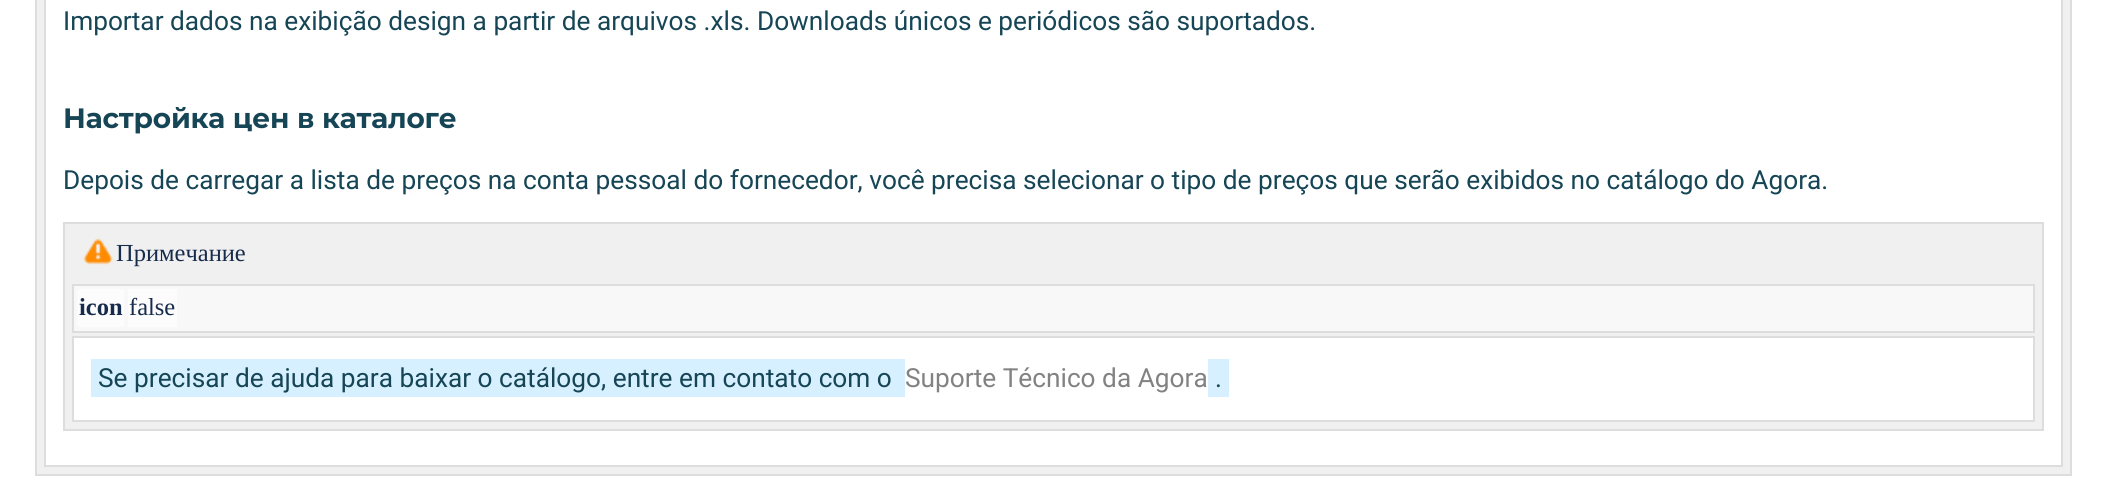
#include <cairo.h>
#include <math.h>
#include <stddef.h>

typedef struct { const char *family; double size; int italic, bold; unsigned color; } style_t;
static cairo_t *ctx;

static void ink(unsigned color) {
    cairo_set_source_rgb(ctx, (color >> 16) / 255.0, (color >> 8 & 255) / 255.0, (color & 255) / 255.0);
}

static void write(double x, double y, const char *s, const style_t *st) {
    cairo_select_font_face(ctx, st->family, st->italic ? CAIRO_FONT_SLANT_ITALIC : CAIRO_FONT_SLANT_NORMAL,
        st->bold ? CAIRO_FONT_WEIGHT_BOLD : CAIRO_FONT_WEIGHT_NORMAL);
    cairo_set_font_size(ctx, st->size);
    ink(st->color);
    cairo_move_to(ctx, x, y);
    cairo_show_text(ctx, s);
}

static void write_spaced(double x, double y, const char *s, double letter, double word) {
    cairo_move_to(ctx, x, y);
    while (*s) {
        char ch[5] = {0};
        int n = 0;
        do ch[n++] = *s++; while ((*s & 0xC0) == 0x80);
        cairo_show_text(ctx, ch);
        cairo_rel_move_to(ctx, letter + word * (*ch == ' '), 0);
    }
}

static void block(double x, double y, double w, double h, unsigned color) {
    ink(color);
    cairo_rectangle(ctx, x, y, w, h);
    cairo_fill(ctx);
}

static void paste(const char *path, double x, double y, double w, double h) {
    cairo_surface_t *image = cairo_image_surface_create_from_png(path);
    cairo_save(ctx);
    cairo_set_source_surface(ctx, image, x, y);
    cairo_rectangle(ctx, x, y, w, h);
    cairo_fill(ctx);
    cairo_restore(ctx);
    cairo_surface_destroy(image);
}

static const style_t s1 = {"Roboto", 26.25, 0, 0, 0x164555};
static const style_t s2 = {"Liberation Serif", 24.5, 0, 0, 0x172b4d};
static const style_t s3 = {"Liberation Serif", 24.5, 0, 1, 0x172b4d};
static const style_t s4 = {"Roboto", 26.25, 0, 0, 0x828282};

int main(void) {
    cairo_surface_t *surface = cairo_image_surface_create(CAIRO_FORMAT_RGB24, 2106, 492);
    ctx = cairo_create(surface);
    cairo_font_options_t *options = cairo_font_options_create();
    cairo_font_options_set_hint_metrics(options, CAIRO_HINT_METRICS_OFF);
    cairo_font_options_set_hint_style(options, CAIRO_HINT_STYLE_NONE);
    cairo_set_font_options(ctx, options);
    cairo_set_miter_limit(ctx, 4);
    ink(0xffffff);
    cairo_paint(ctx);
    ink(0xf0f0f0);
    cairo_rectangle(ctx, 36, -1, 2035, 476);
    cairo_fill_preserve(ctx);
    ink(0xdddddd);
    cairo_stroke(ctx);
    ink(0xffffff);
    cairo_rectangle(ctx, 45, -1, 2017, 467);
    cairo_fill_preserve(ctx);
    ink(0xdddddd);
    cairo_stroke(ctx);
    write(63, 30, "Importar dados na exibição design a partir de arquivos .xls. Downloads únicos e periódicos são suportados.", &s1);
    cairo_select_font_face(ctx, "Montserrat", CAIRO_FONT_SLANT_NORMAL, CAIRO_FONT_WEIGHT_BOLD);
    cairo_set_font_size(ctx, 28);
    write_spaced(63, 128, "Настройка цен в каталоге", -0.2, 0);
    write(63, 189, "Depois de carregar a lista de preços na conta pessoal do fornecedor, você precisa selecionar o tipo de preços que serão exibidos no catálogo do Agora.", &s1);
    ink(0xf0f0f0);
    cairo_rectangle(ctx, 64, 223, 1979, 207);
    cairo_fill_preserve(ctx);
    ink(0xdddddd);
    cairo_stroke(ctx);
    paste("pic1.png", 83, 238, 30, 27);
    write(116, 261, "Примечание", &s2);
    ink(0xf8f8f8);
    cairo_rectangle(ctx, 73, 285, 1961, 47);
    cairo_fill_preserve(ctx);
    ink(0xdddddd);
    cairo_stroke(ctx);
    block(77, 289, 47, 38, 0xfcfcfc);
    write(79, 315, "icon", &s3);
    block(128, 289, 49, 38, 0xfcfcfc);
    write(129, 315, "false", &s2);
    ink(0xffffff);
    cairo_rectangle(ctx, 73, 337, 1961, 84);
    cairo_fill_preserve(ctx);
    ink(0xdddddd);
    cairo_stroke(ctx);
    block(91, 359, 814, 38, 0xd6f0ff);
    write(98, 387, "Se precisar de ajuda para baixar o catálogo, entre em contato com o", &s1);
    write(905, 387, "Suporte Técnico da Agora", &s4);
    block(1208, 359, 21, 38, 0xd6f0ff);
    write(1215, 387, ".", &s1);
    cairo_surface_write_to_png(surface, "screenshot.png");
    cairo_font_options_destroy(options);
    cairo_destroy(ctx);
    cairo_surface_destroy(surface);
    return 0;
}
